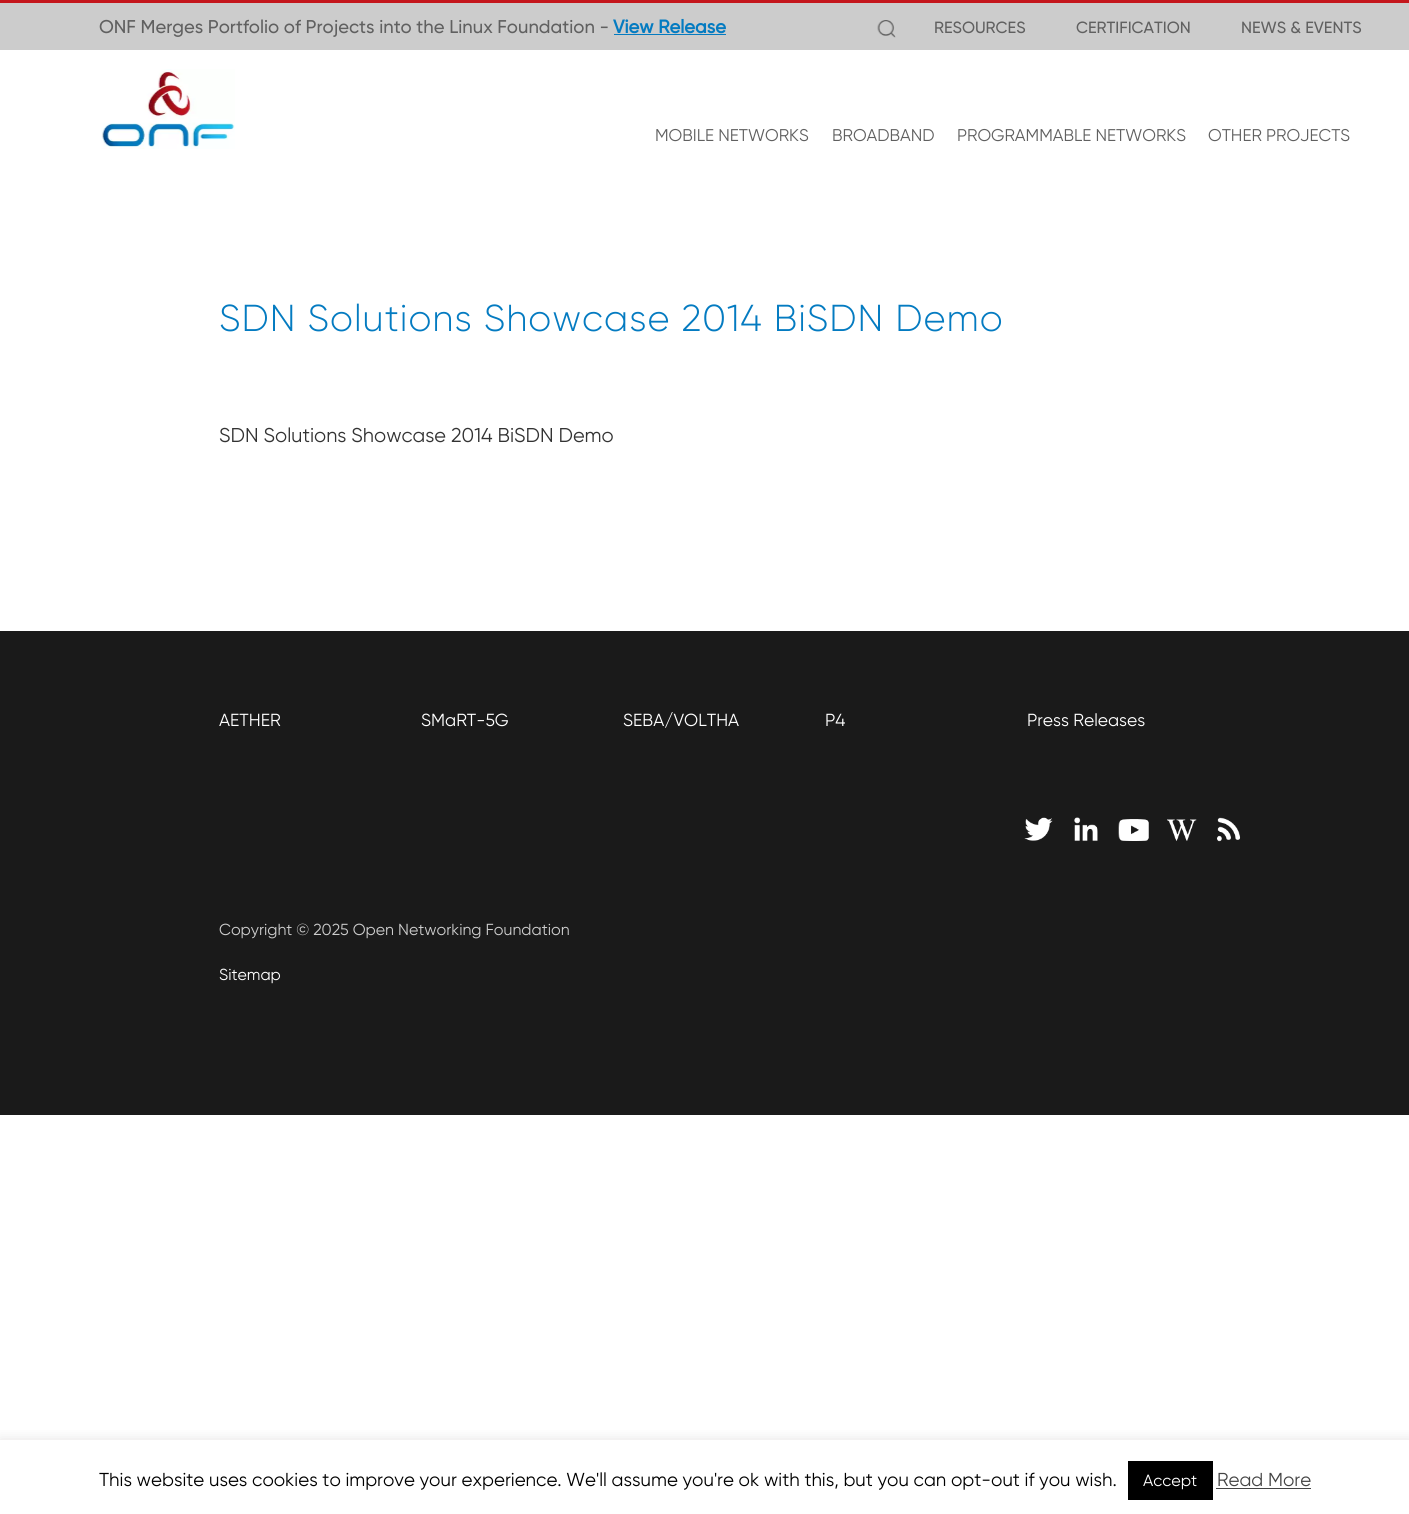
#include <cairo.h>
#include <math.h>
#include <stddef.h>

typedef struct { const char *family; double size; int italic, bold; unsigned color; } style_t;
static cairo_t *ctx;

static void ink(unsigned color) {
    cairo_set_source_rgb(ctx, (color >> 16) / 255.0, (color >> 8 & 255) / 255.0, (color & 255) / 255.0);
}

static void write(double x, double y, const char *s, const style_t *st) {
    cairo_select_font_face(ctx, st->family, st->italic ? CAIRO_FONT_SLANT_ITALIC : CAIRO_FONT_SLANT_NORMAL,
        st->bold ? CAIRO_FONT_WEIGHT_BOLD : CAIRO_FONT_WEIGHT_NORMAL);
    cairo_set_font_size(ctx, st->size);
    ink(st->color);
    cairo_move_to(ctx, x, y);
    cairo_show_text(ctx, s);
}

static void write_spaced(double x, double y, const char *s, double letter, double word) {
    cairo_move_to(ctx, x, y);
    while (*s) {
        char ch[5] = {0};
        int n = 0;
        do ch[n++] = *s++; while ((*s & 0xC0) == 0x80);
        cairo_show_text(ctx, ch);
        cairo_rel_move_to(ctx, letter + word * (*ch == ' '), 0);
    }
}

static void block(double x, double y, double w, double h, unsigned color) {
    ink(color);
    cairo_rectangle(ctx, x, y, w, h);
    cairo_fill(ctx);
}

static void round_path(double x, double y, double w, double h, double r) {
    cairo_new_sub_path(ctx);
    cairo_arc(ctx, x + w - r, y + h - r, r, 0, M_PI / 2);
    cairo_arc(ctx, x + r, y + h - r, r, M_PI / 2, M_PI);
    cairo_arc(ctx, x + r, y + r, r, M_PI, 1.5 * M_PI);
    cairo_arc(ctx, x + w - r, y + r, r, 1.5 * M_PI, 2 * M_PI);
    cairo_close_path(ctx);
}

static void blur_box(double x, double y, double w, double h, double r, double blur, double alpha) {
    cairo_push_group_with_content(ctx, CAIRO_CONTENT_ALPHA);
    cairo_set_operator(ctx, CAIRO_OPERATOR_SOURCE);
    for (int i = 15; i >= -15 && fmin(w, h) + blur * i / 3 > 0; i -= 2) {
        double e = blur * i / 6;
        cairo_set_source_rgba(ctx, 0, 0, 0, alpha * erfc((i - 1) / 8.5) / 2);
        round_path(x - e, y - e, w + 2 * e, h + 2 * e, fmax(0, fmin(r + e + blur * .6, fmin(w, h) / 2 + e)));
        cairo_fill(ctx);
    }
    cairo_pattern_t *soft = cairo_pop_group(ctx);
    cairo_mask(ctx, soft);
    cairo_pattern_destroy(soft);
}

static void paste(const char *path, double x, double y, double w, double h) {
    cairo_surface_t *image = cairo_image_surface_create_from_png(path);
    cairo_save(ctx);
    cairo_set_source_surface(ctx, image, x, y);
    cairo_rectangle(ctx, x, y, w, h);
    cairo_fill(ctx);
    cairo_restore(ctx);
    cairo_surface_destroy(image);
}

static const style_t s1 = {"Gilroy Medium", 18.5, 0, 0, 0x606060};
static const style_t s2 = {"Gilroy", 18.5, 0, 1, 0x047bc1};
static const style_t s3 = {"Gilroy Medium", 16.25, 0, 0, 0x606060};
static const style_t s4 = {"Gilroy", 17, 0, 0, 0x606060};
static const style_t s5 = {"Gilroy", 20, 0, 0, 0x333333};
static const style_t s6 = {"Gilroy", 17.5, 0, 0, 0xffffff};
static const style_t s7 = {"Gilroy", 16, 0, 0, 0xcccccc};
static const style_t s8 = {"Gilroy", 16, 0, 0, 0xffffff};
static const style_t s9 = {"Gilroy", 18.75, 0, 0, 0x000000};
static const style_t s10 = {"Gilroy", 16.25, 0, 0, 0xffffff};
static const style_t s11 = {"Gilroy", 18.75, 0, 0, 0x444444};

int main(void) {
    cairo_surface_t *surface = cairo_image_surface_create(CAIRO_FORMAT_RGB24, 1409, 1514);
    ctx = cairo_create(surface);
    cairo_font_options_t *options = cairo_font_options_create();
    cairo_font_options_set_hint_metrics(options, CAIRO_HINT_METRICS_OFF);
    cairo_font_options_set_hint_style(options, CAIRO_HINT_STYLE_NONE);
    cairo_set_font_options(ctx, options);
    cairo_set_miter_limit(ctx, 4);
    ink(0xffffff);
    cairo_paint(ctx);
    block(0, 3, 1409, 47, 0xcccccc);
    block(0, 0, 1409, 3, 0xc4161c);
    write(99, 33, "ONF Merges Portfolio of Projects into the Linux Foundation -", &s1);
    write(613, 33, "View Release", &s2);
    block(614, 34, 112, 1, 0x047bc1);
    paste("pic1.png", 877, 20, 19, 18);
    write(934, 33, "RESOURCES", &s3);
    write(1076, 33, "CERTIFICATION", &s3);
    write(1241, 33, "NEWS & EVENTS", &s3);
    paste("pic2.png", 101, 69, 134, 80);
    write(655, 141, "MOBILE NETWORKS", &s4);
    write(832, 141, "BROADBAND", &s4);
    write(957, 141, "PROGRAMMABLE NETWORKS", &s4);
    write(1208, 141, "OTHER PROJECTS", &s4);
    cairo_select_font_face(ctx, "Gilroy Light", CAIRO_FONT_SLANT_NORMAL, CAIRO_FONT_WEIGHT_NORMAL);
    cairo_set_font_size(ctx, 37.5);
    ink(0x047bc1);
    write_spaced(219, 331, "SDN Solutions Showcase 2014 BiSDN Demo", 1, 0);
    write(219, 442, "SDN Solutions Showcase 2014 BiSDN Demo", &s5);
    block(0, 631, 1409, 484, 0x1a1a1a);
    write(219, 726, "AETHER", &s6);
    write(421, 726, "SMaRT-5G", &s6);
    write(623, 726, "SEBA/VOLTHA", &s6);
    write(825, 726, "P4", &s6);
    write(1027, 726, "Press Releases", &s6);
    paste("pic3.png", 1024, 817, 29, 24);
    paste("pic4.png", 1074, 817, 24, 24);
    paste("pic5.png", 1118, 819, 31, 22);
    paste("pic6.png", 1167, 819, 30, 22);
    paste("pic7.png", 1217, 817, 24, 25);
    write(219, 935, "Copyright © 2025 Open Networking Foundation", &s7);
    write(219, 980, "Sitemap", &s8);
    cairo_save(ctx);
    cairo_rectangle(ctx, 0, 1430, 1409, 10);
    cairo_clip(ctx);
    ink(0xacabab);
    blur_box(0, 1439, 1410, 75, 0, 6, 0.3);
    cairo_restore(ctx);
    write(99, 1486, "This website uses cookies to improve your experience. We'll assume you're ok with this, but you can opt-out if you wish.", &s9);
    block(1128, 1461, 85, 39, 0x000000);
    write(1143, 1486, "Accept", &s10);
    write(1217, 1486, "Read More", &s11);
    block(1216, 1488, 95, 1, 0x444444);
    cairo_surface_write_to_png(surface, "screenshot.png");
    cairo_font_options_destroy(options);
    cairo_destroy(ctx);
    cairo_surface_destroy(surface);
    return 0;
}
